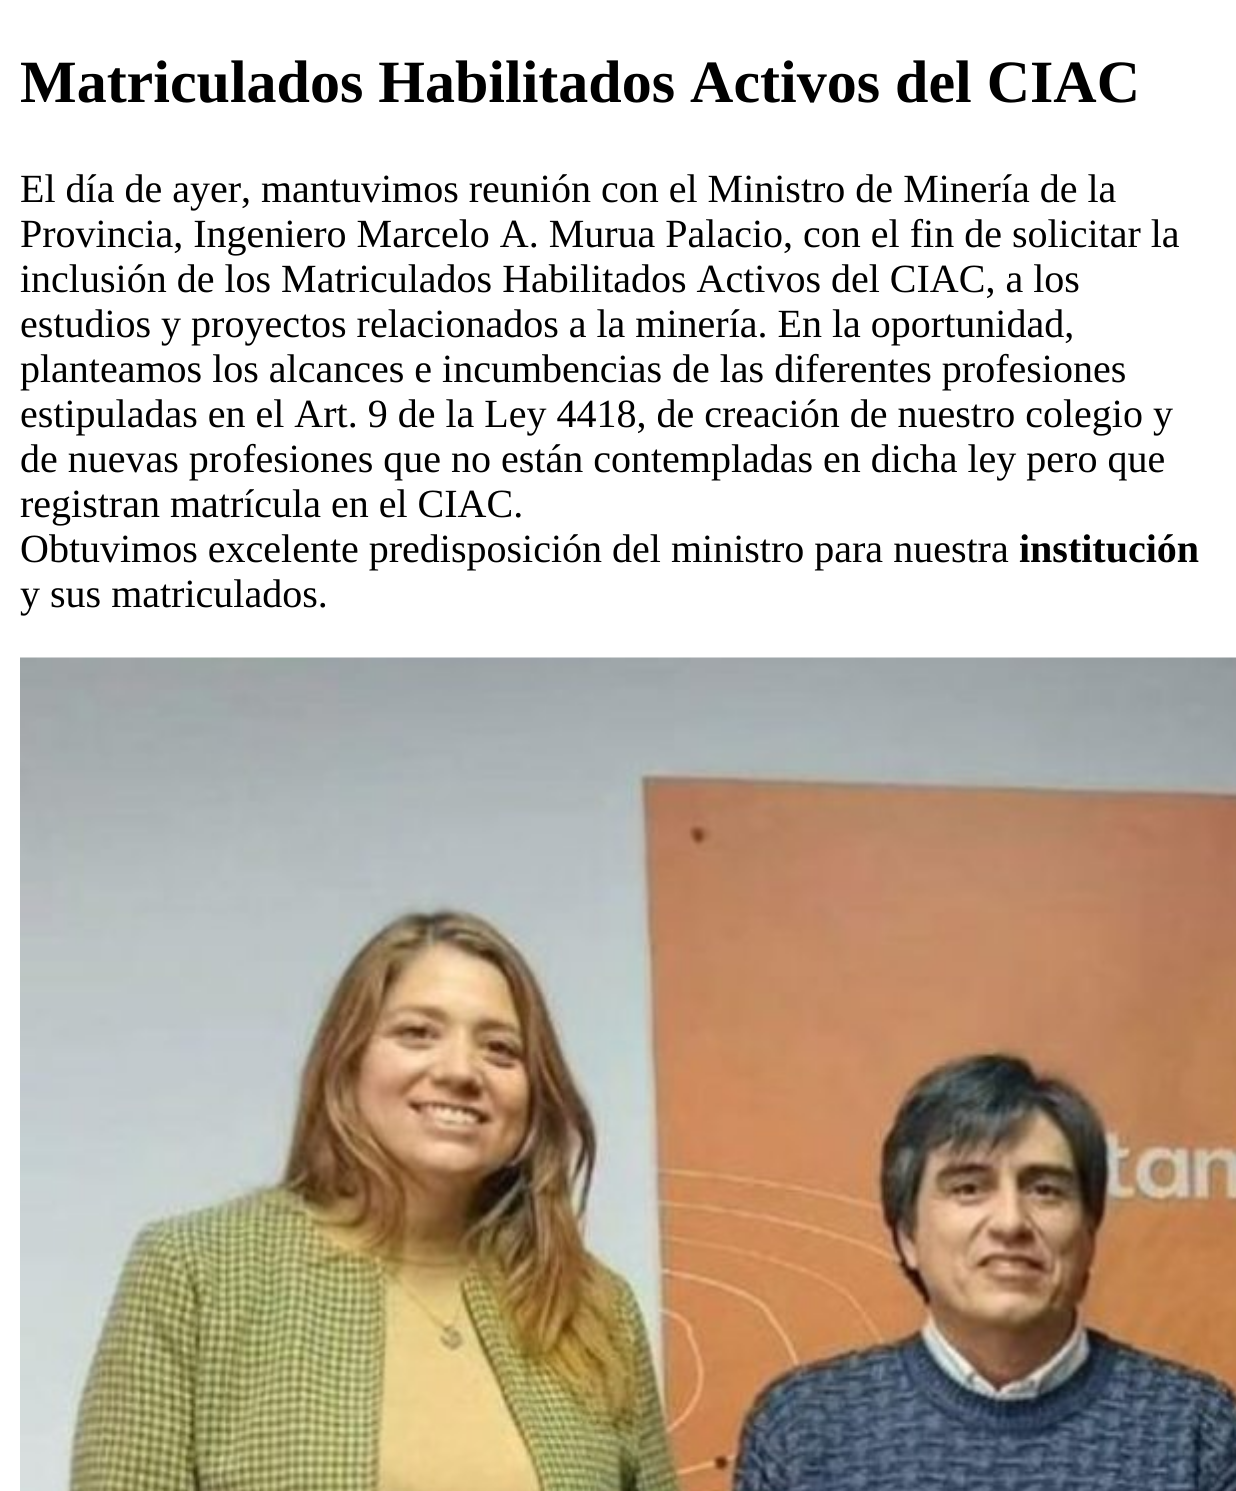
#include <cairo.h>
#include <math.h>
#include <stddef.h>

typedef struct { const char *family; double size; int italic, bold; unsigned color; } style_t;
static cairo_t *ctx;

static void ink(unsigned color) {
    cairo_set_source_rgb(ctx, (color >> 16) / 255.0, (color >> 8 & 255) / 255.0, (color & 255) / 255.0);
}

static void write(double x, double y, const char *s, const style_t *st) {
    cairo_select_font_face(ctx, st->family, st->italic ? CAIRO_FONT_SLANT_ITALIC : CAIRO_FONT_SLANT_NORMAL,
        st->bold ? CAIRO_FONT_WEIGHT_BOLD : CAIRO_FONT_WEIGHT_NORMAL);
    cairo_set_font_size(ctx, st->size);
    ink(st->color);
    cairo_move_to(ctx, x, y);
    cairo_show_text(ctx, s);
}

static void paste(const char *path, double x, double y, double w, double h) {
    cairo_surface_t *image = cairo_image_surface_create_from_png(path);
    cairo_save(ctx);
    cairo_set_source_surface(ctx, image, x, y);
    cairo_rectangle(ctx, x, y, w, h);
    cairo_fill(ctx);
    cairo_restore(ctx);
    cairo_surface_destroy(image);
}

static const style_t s1 = {"Liberation Serif", 60, 0, 1, 0x000000};
static const style_t s2 = {"Liberation Serif", 40, 0, 0, 0x000000};
static const style_t s3 = {"Liberation Serif", 40, 0, 1, 0x000000};

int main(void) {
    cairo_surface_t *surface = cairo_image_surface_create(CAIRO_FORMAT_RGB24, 1236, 1491);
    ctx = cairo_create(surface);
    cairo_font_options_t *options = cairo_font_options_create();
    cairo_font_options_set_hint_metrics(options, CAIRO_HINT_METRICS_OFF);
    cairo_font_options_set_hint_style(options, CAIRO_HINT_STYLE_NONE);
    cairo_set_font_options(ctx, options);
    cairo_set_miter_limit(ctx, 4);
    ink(0xffffff);
    cairo_paint(ctx);
    write(20, 102, "Matriculados Habilitados Activos del CIAC", &s1);
    write(20, 202, "El día de ayer, mantuvimos reunión con el Ministro de Minería de la", &s2);
    write(20, 247, "Provincia, Ingeniero Marcelo A. Murua Palacio, con el fin de solicitar la", &s2);
    write(20, 292, "inclusión de los Matriculados Habilitados Activos del CIAC, a los", &s2);
    write(20, 337, "estudios y proyectos relacionados a la minería. En la oportunidad,", &s2);
    write(20, 382, "planteamos los alcances e incumbencias de las diferentes profesiones", &s2);
    write(20, 427, "estipuladas en el Art. 9 de la Ley 4418, de creación de nuestro colegio y", &s2);
    write(20, 472, "de nuevas profesiones que no están contempladas en dicha ley pero que", &s2);
    write(20, 517, "registran matrícula en el CIAC.", &s2);
    write(20, 562, "Obtuvimos excelente predisposición del ministro para nuestra", &s2);
    write(1019, 562, "institución", &s3);
    write(20, 607, "y sus matriculados.", &s2);
    paste("pic1.png", 20, 657, 1216, 834);
    cairo_surface_write_to_png(surface, "screenshot.png");
    cairo_font_options_destroy(options);
    cairo_destroy(ctx);
    cairo_surface_destroy(surface);
    return 0;
}
